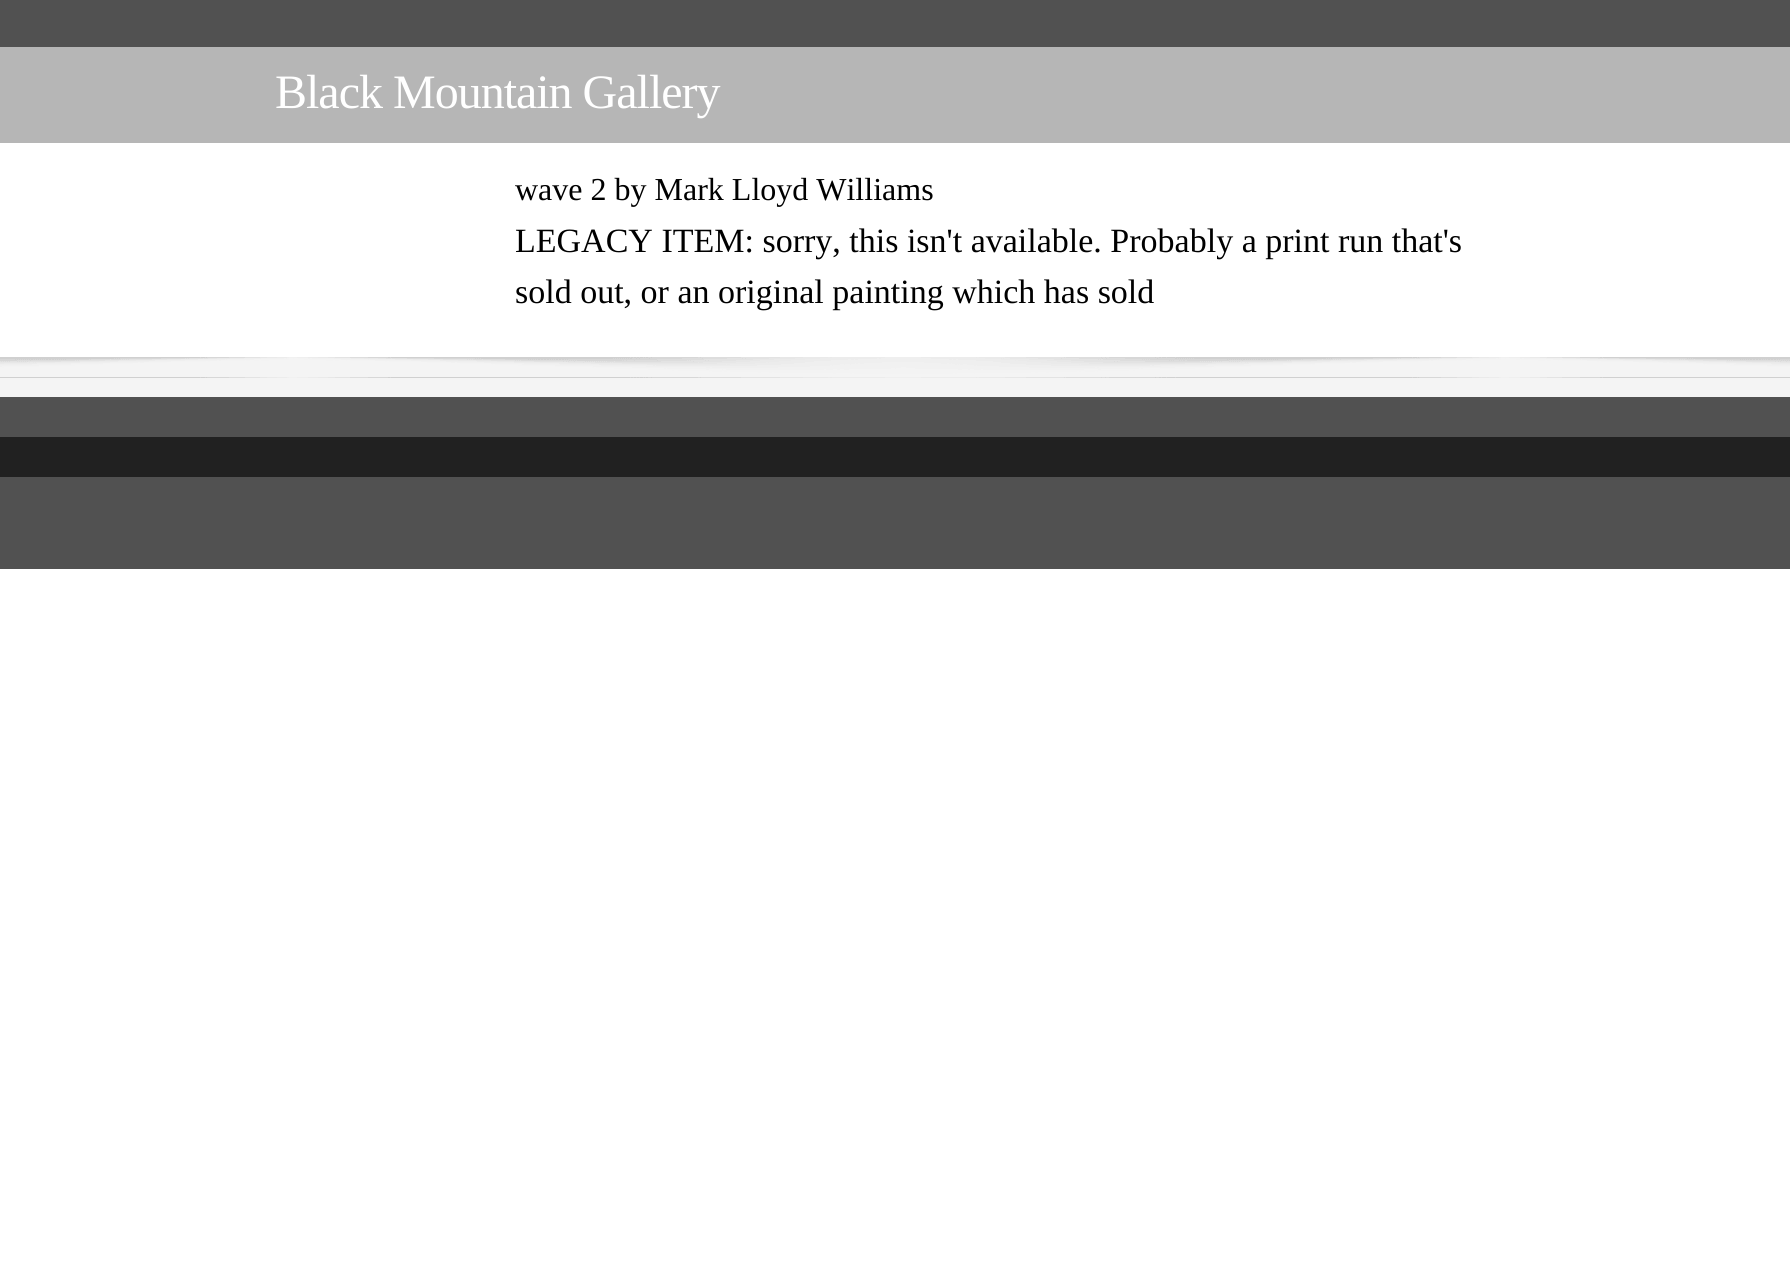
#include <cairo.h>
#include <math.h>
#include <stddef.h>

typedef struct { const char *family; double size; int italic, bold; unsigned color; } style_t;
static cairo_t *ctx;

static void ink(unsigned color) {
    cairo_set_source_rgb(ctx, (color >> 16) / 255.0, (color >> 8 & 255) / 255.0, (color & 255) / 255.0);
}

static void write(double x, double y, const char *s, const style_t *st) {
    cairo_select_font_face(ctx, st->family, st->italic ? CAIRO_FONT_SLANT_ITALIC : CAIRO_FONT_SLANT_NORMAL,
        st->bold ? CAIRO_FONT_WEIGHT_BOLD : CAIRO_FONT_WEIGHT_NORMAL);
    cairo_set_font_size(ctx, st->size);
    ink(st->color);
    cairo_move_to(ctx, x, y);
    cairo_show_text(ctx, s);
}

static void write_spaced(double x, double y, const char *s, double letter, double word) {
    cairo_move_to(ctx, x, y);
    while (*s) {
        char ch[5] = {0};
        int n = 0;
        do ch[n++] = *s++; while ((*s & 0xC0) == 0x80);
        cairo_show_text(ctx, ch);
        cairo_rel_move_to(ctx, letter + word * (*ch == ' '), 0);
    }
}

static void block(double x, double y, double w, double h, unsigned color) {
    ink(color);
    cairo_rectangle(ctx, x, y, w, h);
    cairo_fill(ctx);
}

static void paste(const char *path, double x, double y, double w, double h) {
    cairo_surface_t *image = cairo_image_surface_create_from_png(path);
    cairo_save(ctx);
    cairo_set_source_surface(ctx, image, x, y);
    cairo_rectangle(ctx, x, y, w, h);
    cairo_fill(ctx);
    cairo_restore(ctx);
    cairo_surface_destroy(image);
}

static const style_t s1 = {"Liberation Serif", 32, 0, 0, 0x000000};
static const style_t s2 = {"Liberation Serif", 34, 0, 0, 0x000000};

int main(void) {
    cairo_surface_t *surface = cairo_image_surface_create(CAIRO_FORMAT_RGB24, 1790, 1285);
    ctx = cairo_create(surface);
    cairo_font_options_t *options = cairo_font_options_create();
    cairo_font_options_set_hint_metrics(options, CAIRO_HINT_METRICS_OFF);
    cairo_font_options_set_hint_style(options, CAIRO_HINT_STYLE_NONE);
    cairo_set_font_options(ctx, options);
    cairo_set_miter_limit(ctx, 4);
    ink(0xffffff);
    cairo_paint(ctx);
    block(0, 47, 1790, 96, 0xb6b6b6);
    block(0, 0, 1790, 47, 0x515151);
    cairo_select_font_face(ctx, "Liberation Serif", CAIRO_FONT_SLANT_NORMAL, CAIRO_FONT_WEIGHT_NORMAL);
    cairo_set_font_size(ctx, 48);
    ink(0xffffff);
    write_spaced(275, 108, "Black Mountain Gallery", -1, 0);
    write(515, 200, "wave 2 by Mark Lloyd Williams", &s1);
    write(515, 252, "LEGACY ITEM: sorry, this isn't available. Probably a print run that's", &s2);
    write(515, 303, "sold out, or an original painting which has sold", &s2);
    block(0, 357, 1790, 40, 0xf4f4f4);
    paste("pic1.png", 0, 357, 1790, 21);
    block(0, 397, 1790, 40, 0x515151);
    block(0, 437, 1790, 40, 0x212121);
    block(0, 477, 1790, 92, 0x515151);
    cairo_surface_write_to_png(surface, "screenshot.png");
    cairo_font_options_destroy(options);
    cairo_destroy(ctx);
    cairo_surface_destroy(surface);
    return 0;
}
